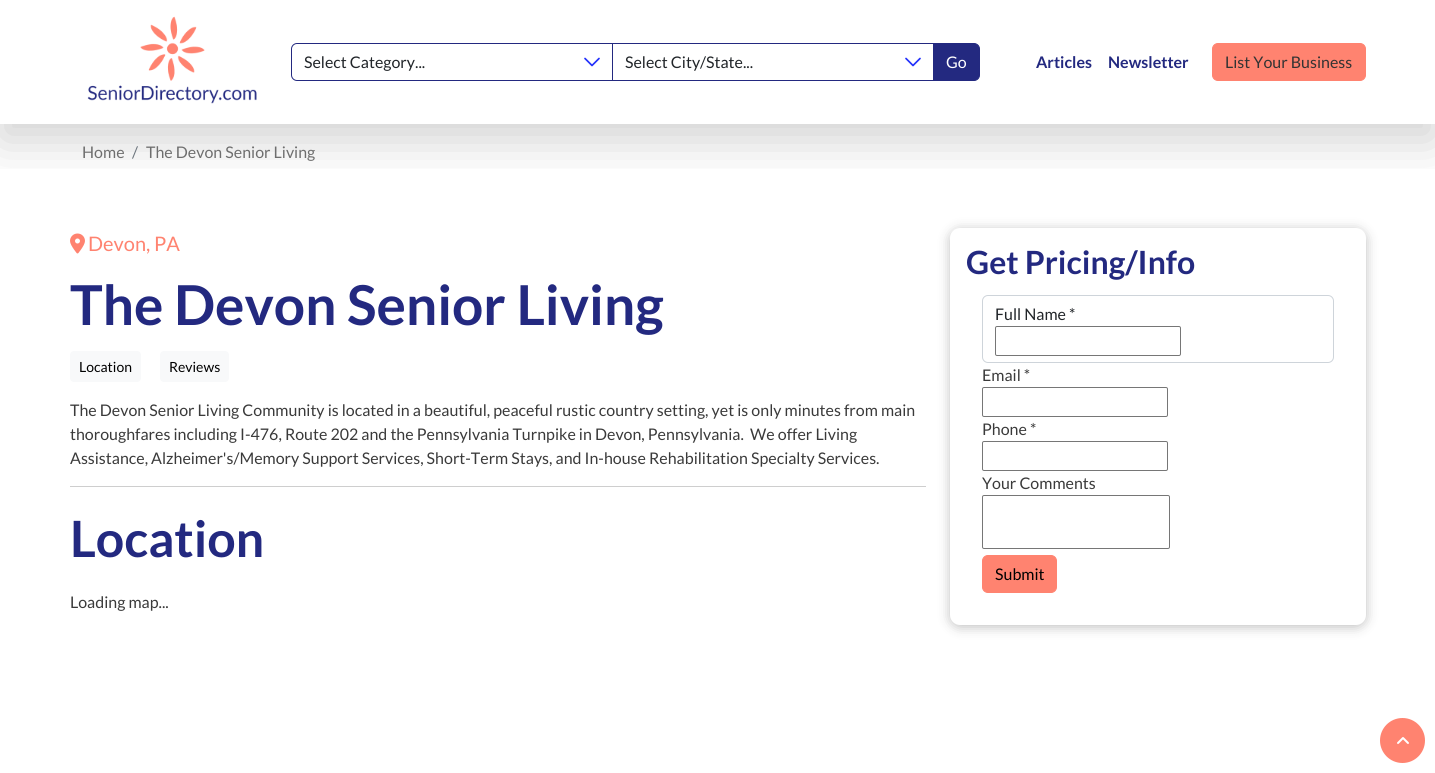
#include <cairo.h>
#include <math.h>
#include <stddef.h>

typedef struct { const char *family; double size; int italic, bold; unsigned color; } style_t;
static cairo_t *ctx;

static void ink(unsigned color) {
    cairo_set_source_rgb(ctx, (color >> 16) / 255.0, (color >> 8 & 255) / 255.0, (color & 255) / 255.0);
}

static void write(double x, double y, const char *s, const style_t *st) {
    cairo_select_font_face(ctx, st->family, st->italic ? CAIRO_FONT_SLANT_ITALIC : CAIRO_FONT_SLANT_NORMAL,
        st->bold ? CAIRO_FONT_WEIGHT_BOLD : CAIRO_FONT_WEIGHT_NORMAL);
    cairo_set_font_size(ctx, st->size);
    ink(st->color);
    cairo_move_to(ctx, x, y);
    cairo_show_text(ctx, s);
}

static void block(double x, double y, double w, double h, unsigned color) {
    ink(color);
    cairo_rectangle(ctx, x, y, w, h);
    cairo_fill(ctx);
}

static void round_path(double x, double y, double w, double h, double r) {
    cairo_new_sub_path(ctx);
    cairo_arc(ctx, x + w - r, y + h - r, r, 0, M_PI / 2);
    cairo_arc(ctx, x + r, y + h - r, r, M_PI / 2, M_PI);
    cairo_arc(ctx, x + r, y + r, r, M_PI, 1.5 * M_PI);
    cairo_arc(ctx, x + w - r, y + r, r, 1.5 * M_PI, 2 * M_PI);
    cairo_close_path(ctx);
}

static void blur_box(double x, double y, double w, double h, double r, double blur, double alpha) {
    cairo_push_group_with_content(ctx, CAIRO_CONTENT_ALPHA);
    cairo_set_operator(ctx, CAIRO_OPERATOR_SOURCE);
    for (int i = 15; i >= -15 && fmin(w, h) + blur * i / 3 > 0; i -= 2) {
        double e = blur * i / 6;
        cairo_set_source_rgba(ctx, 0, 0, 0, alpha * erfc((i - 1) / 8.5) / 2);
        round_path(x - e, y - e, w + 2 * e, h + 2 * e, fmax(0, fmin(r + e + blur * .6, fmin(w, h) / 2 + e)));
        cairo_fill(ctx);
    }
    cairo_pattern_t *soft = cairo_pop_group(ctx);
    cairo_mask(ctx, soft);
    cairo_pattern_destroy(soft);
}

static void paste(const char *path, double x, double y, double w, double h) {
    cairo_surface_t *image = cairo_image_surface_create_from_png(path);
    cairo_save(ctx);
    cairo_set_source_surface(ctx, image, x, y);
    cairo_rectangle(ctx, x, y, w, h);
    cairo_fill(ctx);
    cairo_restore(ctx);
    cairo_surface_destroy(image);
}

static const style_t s1 = {"Lato", 16, 0, 0, 0x212529};
static const style_t s2 = {"Lato", 16, 0, 0, 0xffffff};
static const style_t s3 = {"Lato", 16, 0, 1, 0x232980};
static const style_t s4 = {"Lato", 16, 0, 0, 0x333333};
static const style_t s5 = {"Lato", 16, 0, 0, 0x6e6e6e};
static const style_t s6 = {"Lato", 16, 0, 0, 0x6c757d};
static const style_t s7 = {"Lato", 20, 0, 0, 0xff8370};
static const style_t s8 = {"Lato", 55, 0, 1, 0x232980};
static const style_t s9 = {"Lato", 14, 0, 0, 0x000000};
static const style_t s10 = {"Lato", 16, 0, 0, 0x3a3a3a};
static const style_t s11 = {"Lato", 50, 0, 1, 0x232980};
static const style_t s12 = {"Lato", 32, 0, 1, 0x232980};
static const style_t s13 = {"Lato", 16, 0, 0, 0x000000};

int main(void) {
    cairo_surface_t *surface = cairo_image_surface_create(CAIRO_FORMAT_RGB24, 1435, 773);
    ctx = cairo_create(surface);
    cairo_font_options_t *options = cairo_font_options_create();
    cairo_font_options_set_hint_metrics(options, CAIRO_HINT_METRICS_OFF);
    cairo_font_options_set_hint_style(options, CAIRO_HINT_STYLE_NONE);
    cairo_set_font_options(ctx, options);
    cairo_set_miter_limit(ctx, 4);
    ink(0xffffff);
    cairo_paint(ctx);
    cairo_save(ctx);
    cairo_rectangle(ctx, 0, 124, 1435, 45);
    cairo_clip(ctx);
    ink(0x000000);
    blur_box(0, 16, 1435, 124, 0, 24, 0.18);
    cairo_restore(ctx);
    paste("pic1.png", 87, 16, 170, 88);
    cairo_new_path(ctx);
    cairo_move_to(ctx, 585, 58.5);
    cairo_line_to(ctx, 592, 65.5);
    cairo_line_to(ctx, 599, 58.5);
    ink(0x2230fb);
    cairo_set_line_width(ctx, 1.7);
    cairo_set_line_cap(ctx, CAIRO_LINE_CAP_ROUND);
    cairo_set_line_join(ctx, CAIRO_LINE_JOIN_ROUND);
    cairo_stroke(ctx);
    cairo_new_path(ctx);
    cairo_move_to(ctx, 297, 43.5);
    cairo_line_to(ctx, 612.5, 43.5);
    cairo_line_to(ctx, 612.5, 80.5);
    cairo_line_to(ctx, 297, 80.5);
    cairo_curve_to(ctx, 294, 80.5, 291.5, 78, 291.5, 75);
    cairo_line_to(ctx, 291.5, 49);
    cairo_curve_to(ctx, 291.5, 46, 294, 43.5, 297, 43.5);
    cairo_close_path(ctx);
    ink(0x232980);
    cairo_set_line_width(ctx, 1);
    cairo_set_line_cap(ctx, CAIRO_LINE_CAP_BUTT);
    cairo_set_line_join(ctx, CAIRO_LINE_JOIN_MITER);
    cairo_stroke(ctx);
    write(304, 68, "Select Category...", &s1);
    cairo_new_path(ctx);
    cairo_move_to(ctx, 906, 58.5);
    cairo_line_to(ctx, 913, 65.5);
    cairo_line_to(ctx, 920, 58.5);
    ink(0x2230fb);
    cairo_set_line_width(ctx, 1.7);
    cairo_set_line_cap(ctx, CAIRO_LINE_CAP_ROUND);
    cairo_set_line_join(ctx, CAIRO_LINE_JOIN_ROUND);
    cairo_stroke(ctx);
    cairo_rectangle(ctx, 612.5, 43.5, 321, 37);
    ink(0x232980);
    cairo_set_line_width(ctx, 1);
    cairo_set_line_cap(ctx, CAIRO_LINE_CAP_BUTT);
    cairo_set_line_join(ctx, CAIRO_LINE_JOIN_MITER);
    cairo_stroke(ctx);
    write(625, 68, "Select City/State...", &s1);
    ink(0x232980);
    cairo_new_path(ctx);
    cairo_move_to(ctx, 933.5, 43.5);
    cairo_line_to(ctx, 974, 43.5);
    cairo_curve_to(ctx, 977, 43.5, 979.5, 46, 979.5, 49);
    cairo_line_to(ctx, 979.5, 75);
    cairo_curve_to(ctx, 979.5, 78, 977, 80.5, 974, 80.5);
    cairo_line_to(ctx, 933.5, 80.5);
    cairo_close_path(ctx);
    cairo_fill_preserve(ctx);
    cairo_stroke(ctx);
    write(946, 68, "Go", &s2);
    write(1036, 68, "Articles", &s3);
    write(1108, 68, "Newsletter", &s3);
    ink(0xff8370);
    round_path(1212.5, 43.5, 153, 37, 5.5);
    cairo_fill_preserve(ctx);
    cairo_stroke(ctx);
    write(1225, 68, "List Your Business", &s4);
    write(82, 158, "Home", &s5);
    write(132, 158, "/", &s6);
    write(146, 158, "The Devon Senior Living", &s5);
    paste("pic2.png", 70, 233, 15, 21);
    write(88, 251, "Devon, PA", &s7);
    write(70, 325, "The Devon Senior Living", &s8);
    ink(0xf8f9fa);
    round_path(70, 351, 71, 31, 4);
    cairo_fill(ctx);
    write(79, 372, "Location", &s9);
    ink(0xf8f9fa);
    round_path(160, 351, 69, 31, 4);
    cairo_fill(ctx);
    write(169, 372, "Reviews", &s9);
    write(70, 416, "The Devon Senior Living Community is located in a beautiful, peaceful rustic country setting, yet is only minutes from main", &s10);
    write(70, 440, "thoroughfares including I-476, Route 202 and the Pennsylvania Turnpike in Devon, Pennsylvania.  We offer Living", &s10);
    write(70, 464, "Assistance, Alzheimer's/Memory Support Services, Short-Term Stays, and In-house Rehabilitation Specialty Services.", &s10);
    block(70, 486, 856, 1, 0xcecece);
    write(70, 557, "Location", &s11);
    write(70, 608, "Loading map...", &s10);
    ink(0x000000);
    blur_box(950, 230, 416, 397, 10, 6, 0.25);
    ink(0xffffff);
    round_path(950, 228, 416, 397, 10);
    cairo_fill(ctx);
    write(966, 274, "Get Pricing/Info", &s12);
    round_path(982.5, 295.5, 351, 67, 5.5);
    ink(0xced4da);
    cairo_stroke(ctx);
    write(995, 320, "Full Name *", &s1);
    round_path(995.5, 326.5, 185, 29, 1.5);
    ink(0x767676);
    cairo_stroke(ctx);
    write(982, 381, "Email *", &s10);
    round_path(982.5, 387.5, 185, 29, 1.5);
    ink(0x767676);
    cairo_stroke(ctx);
    write(982, 435, "Phone *", &s10);
    round_path(982.5, 441.5, 185, 29, 1.5);
    ink(0x767676);
    cairo_stroke(ctx);
    write(982, 489, "Your Comments", &s10);
    round_path(982.5, 495.5, 187, 53, 1.5);
    ink(0x767676);
    cairo_stroke(ctx);
    ink(0xff8370);
    round_path(982.5, 555.5, 74, 37, 5.5);
    cairo_fill_preserve(ctx);
    cairo_stroke(ctx);
    write(995, 580, "Submit", &s13);
    ink(0xff8370);
    cairo_new_path(ctx);
    cairo_arc(ctx, 1402.5, 740.5, 22.5, 0, 2 * M_PI);
    cairo_fill(ctx);
    paste("pic3.png", 1397, 737, 12, 7);
    cairo_surface_write_to_png(surface, "screenshot.png");
    cairo_font_options_destroy(options);
    cairo_destroy(ctx);
    cairo_surface_destroy(surface);
    return 0;
}
